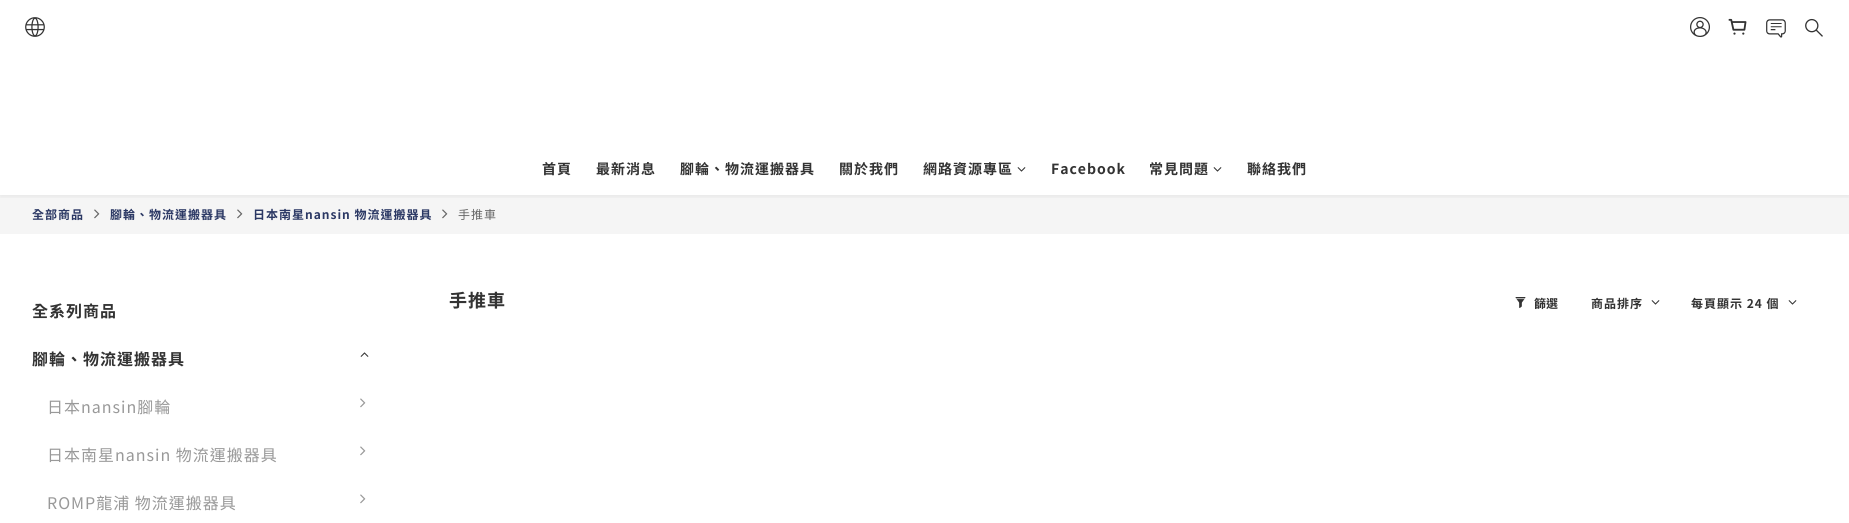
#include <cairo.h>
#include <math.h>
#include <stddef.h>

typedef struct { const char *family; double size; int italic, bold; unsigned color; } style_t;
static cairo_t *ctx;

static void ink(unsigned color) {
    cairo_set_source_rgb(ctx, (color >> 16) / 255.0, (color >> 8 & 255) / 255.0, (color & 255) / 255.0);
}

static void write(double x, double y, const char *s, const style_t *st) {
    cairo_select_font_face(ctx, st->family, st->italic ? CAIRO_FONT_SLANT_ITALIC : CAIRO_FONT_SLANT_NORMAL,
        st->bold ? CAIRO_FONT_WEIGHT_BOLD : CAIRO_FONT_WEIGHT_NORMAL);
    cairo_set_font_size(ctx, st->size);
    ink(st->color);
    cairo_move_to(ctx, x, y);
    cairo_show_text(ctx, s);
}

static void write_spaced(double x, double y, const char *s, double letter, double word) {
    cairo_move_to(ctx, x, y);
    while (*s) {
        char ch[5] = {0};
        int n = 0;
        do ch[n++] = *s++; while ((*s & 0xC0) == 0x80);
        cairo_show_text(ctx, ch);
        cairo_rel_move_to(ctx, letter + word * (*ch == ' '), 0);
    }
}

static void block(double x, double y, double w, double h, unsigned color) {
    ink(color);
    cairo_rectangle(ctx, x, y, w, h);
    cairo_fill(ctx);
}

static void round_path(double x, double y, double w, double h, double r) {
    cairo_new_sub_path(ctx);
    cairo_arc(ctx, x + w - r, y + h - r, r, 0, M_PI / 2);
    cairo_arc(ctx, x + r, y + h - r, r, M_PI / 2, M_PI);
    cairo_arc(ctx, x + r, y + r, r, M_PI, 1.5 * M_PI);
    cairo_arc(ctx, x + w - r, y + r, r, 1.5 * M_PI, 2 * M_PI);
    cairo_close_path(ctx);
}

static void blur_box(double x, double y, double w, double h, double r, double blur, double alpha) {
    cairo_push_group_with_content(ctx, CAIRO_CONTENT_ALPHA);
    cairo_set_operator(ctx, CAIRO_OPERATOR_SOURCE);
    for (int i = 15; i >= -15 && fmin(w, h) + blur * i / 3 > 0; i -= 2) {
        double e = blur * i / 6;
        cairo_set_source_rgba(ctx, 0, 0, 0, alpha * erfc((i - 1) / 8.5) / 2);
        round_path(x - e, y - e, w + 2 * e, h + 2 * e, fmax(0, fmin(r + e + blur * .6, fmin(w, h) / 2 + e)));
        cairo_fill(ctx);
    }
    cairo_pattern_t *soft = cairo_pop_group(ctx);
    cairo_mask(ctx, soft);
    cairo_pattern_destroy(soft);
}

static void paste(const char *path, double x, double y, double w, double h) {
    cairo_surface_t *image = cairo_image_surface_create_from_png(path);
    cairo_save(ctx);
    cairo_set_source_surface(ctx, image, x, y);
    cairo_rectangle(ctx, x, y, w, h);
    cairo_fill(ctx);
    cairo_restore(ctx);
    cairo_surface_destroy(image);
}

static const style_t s1 = {"Noto Sans TC", 12, 0, 1, 0x333333};

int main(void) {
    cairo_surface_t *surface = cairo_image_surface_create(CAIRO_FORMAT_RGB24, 1849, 523);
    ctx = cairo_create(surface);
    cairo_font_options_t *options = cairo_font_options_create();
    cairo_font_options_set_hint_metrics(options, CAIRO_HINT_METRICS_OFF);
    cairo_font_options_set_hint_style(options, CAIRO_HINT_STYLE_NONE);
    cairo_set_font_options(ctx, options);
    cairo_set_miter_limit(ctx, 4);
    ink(0xffffff);
    cairo_paint(ctx);
    block(0, 195, 1849, 39, 0xf5f5f5);
    cairo_save(ctx);
    cairo_rectangle(ctx, 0, 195, 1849, 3);
    cairo_clip(ctx);
    ink(0x000000);
    blur_box(0, 2, 1849, 195, 0, 3, 0.06);
    cairo_restore(ctx);
    paste("pic1.png", 25, 17, 20, 20);
    paste("pic2.png", 1690, 17, 20, 20);
    paste("pic3.png", 1728, 18, 19, 17);
    paste("pic4.png", 1766, 19, 20, 19);
    paste("pic5.png", 1805, 18, 18, 19);
    cairo_select_font_face(ctx, "Noto Sans TC", CAIRO_FONT_SLANT_NORMAL, CAIRO_FONT_WEIGHT_BOLD);
    cairo_set_font_size(ctx, 14);
    ink(0x333333);
    write_spaced(542, 174, "首頁", 1, 0);
    write_spaced(596, 174, "最新消息", 1, 0);
    write_spaced(680, 174, "腳輪、物流運搬器具", 1, 0);
    write_spaced(839, 174, "關於我們", 1, 0);
    write_spaced(923, 174, "網路資源專區", 1, 0);
    paste("pic6.png", 1017, 167, 9, 5);
    write_spaced(1051, 174, "Facebook", 1, 0);
    write_spaced(1149, 174, "常見問題", 1, 0);
    paste("pic6.png", 1213, 167, 9, 5);
    write_spaced(1247, 174, "聯絡我們", 1, 0);
    cairo_set_font_size(ctx, 12);
    ink(0x2b3864);
    write_spaced(32, 219, "全部商品", 1, 0);
    paste("pic7.png", 94, 209, 6, 10);
    write_spaced(110, 219, "腳輪、物流運搬器具", 1, 0);
    paste("pic7.png", 237, 209, 6, 10);
    write_spaced(253, 219, "日本南星nansin 物流運搬器具", 1, 0);
    paste("pic7.png", 442, 209, 6, 10);
    cairo_select_font_face(ctx, "Noto Sans TC", CAIRO_FONT_SLANT_NORMAL, CAIRO_FONT_WEIGHT_NORMAL);
    ink(0x666666);
    write_spaced(458, 219, "手推車", 1, 0);
    cairo_select_font_face(ctx, "Noto Sans TC", CAIRO_FONT_SLANT_NORMAL, CAIRO_FONT_WEIGHT_BOLD);
    cairo_set_font_size(ctx, 18);
    ink(0x333333);
    write_spaced(449, 307, "手推車", 1, 0);
    paste("pic8.png", 1515, 297, 11, 11);
    write(1534, 308, "篩選", &s1);
    write_spaced(1591, 308, "商品排序", 1, 0);
    paste("pic6.png", 1651, 300, 9, 5);
    write_spaced(1691, 308, "每頁顯示 24 個", 1, 0);
    paste("pic6.png", 1788, 300, 9, 5);
    cairo_set_font_size(ctx, 16);
    write_spaced(32, 317, "全系列商品", 1, 0);
    write_spaced(32, 365, "腳輪、物流運搬器具", 1, 0);
    paste("pic9.png", 360, 352, 9, 5);
    cairo_select_font_face(ctx, "Noto Sans TC", CAIRO_FONT_SLANT_NORMAL, CAIRO_FONT_WEIGHT_NORMAL);
    ink(0x999999);
    write_spaced(47, 413, "日本nansin腳輪", 1, 0);
    paste("pic10.png", 360, 398, 6, 10);
    write_spaced(47, 461, "日本南星nansin 物流運搬器具", 1, 0);
    paste("pic10.png", 360, 446, 6, 10);
    write_spaced(47, 509, "ROMP龍浦 物流運搬器具", 1, 0);
    paste("pic10.png", 360, 494, 6, 10);
    cairo_surface_write_to_png(surface, "screenshot.png");
    cairo_font_options_destroy(options);
    cairo_destroy(ctx);
    cairo_surface_destroy(surface);
    return 0;
}
